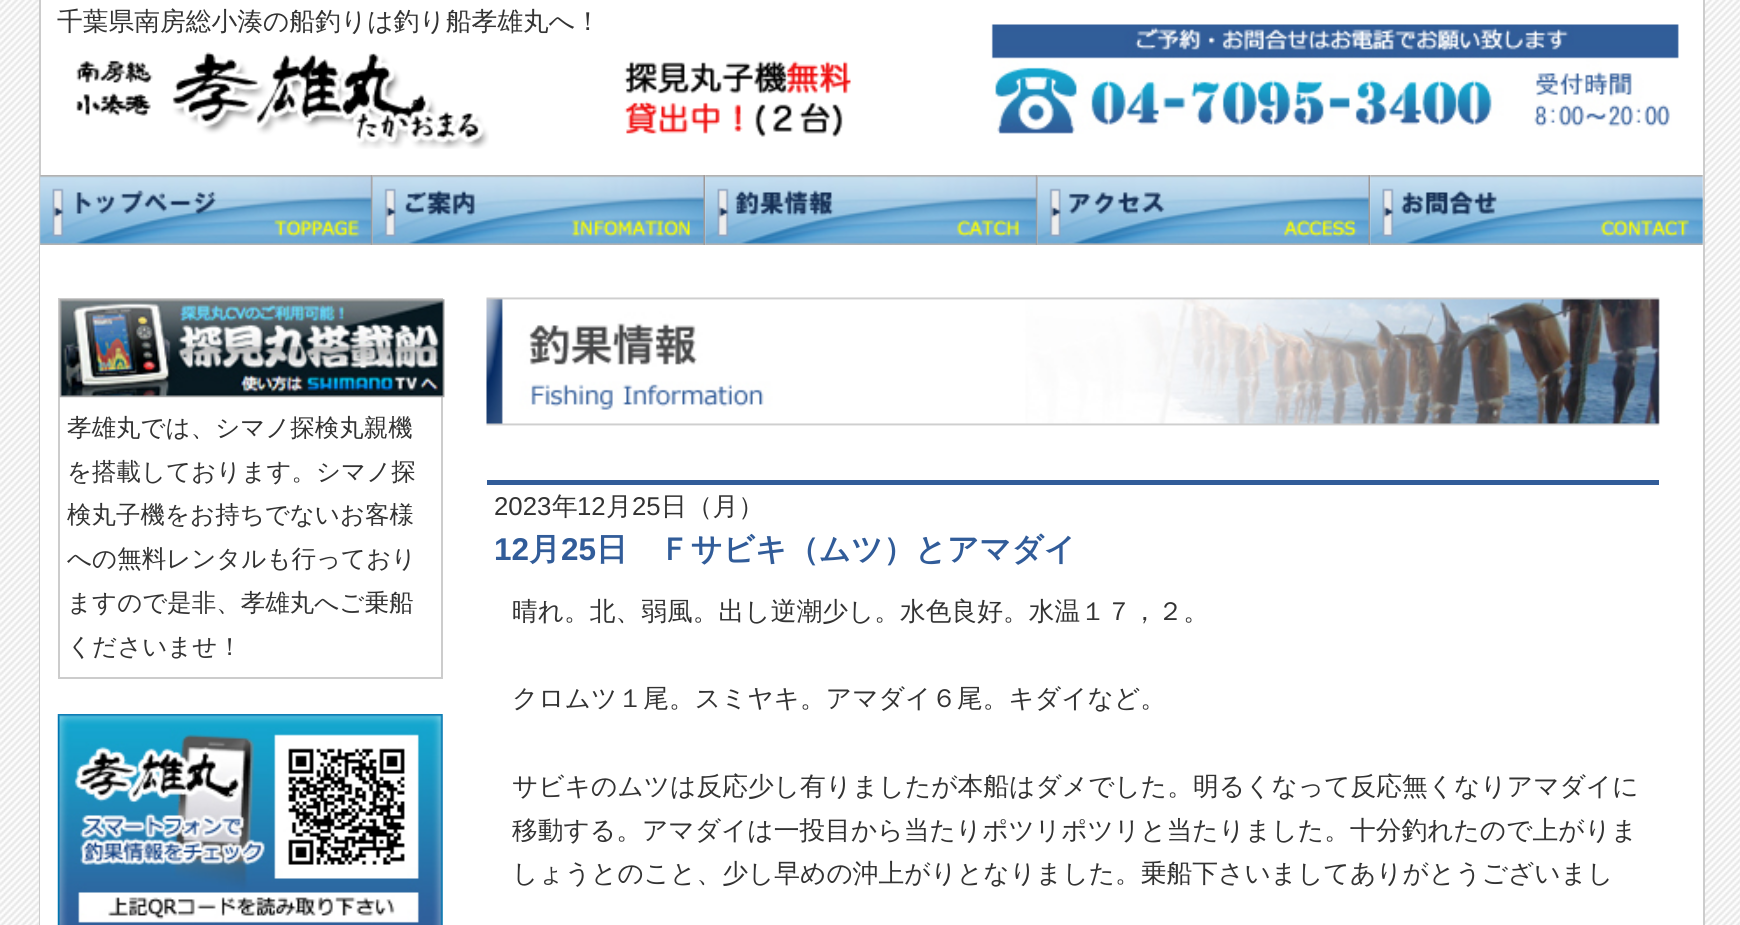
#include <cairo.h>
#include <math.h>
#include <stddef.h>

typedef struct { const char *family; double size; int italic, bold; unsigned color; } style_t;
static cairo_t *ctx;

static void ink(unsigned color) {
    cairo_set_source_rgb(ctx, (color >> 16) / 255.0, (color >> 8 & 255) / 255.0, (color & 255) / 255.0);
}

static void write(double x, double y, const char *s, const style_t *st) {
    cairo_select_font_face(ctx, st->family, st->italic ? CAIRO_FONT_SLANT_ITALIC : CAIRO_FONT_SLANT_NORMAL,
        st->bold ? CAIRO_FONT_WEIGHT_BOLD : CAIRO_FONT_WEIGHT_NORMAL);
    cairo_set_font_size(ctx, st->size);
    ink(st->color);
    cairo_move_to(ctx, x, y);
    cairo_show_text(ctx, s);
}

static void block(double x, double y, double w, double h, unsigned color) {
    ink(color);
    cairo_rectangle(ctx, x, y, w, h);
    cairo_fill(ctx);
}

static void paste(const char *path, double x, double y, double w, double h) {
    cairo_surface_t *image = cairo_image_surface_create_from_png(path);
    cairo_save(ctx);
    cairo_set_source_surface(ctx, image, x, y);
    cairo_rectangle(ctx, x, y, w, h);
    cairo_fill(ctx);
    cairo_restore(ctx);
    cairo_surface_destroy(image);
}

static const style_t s1 = {"WenQuanYi Zen Hei Medium", 25.75, 0, 0, 0x333333};
static const style_t s2 = {"WenQuanYi Zen Hei Medium", 24.5, 0, 0, 0x333333};
static const style_t s3 = {"Liberation Sans", 25.75, 0, 0, 0x333333};
static const style_t s4 = {"Liberation Sans", 31.5, 0, 1, 0x315c99};
static const style_t s5 = {"WenQuanYi Zen Hei", 31.5, 0, 1, 0x315c99};

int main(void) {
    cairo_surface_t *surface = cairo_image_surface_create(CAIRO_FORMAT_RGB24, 1740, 925);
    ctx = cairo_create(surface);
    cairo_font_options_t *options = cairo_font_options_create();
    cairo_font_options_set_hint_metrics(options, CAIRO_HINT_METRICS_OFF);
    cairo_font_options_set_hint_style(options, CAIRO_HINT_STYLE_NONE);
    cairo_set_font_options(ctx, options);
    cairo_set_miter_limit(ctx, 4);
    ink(0xffffff);
    cairo_paint(ctx);
    paste("pic1.png", 0, 0, 1740, 925);
    block(41, 0, 1662, 245, 0xffffff);
    block(1703, 0, 2, 925, 0xcccccc);
    block(39, 0, 2, 925, 0xcccccc);
    write(57, 30, "千葉県南房総小湊の船釣りは釣り船孝雄丸へ！", &s1);
    paste("pic2.png", 76, 52, 413, 97);
    paste("pic3.png", 624, 60, 227, 77);
    paste("pic4.png", 991, 24, 688, 110);
    paste("pic5.png", 40, 175, 333, 70);
    paste("pic6.png", 372, 175, 334, 70);
    paste("pic7.png", 705, 175, 333, 70);
    paste("pic8.png", 1037, 175, 334, 70);
    paste("pic9.png", 1370, 175, 333, 70);
    block(40, 245, 1663, 680, 0xffffff);
    cairo_rectangle(ctx, 59, 299, 383, 379);
    ink(0xcccccc);
    cairo_stroke(ctx);
    paste("pic10.png", 59, 299, 386, 99);
    write(67, 436, "孝雄丸では、シマノ探検丸親機", &s2);
    write(67, 480, "を搭載しております。シマノ探", &s2);
    write(67, 523, "検丸子機をお持ちでないお客様", &s2);
    write(67, 567, "への無料レンタルも行っており", &s2);
    write(67, 611, "ますので是非、孝雄丸へご乗船", &s2);
    write(67, 655, "くださいませ！", &s2);
    paste("pic11.png", 57, 714, 386, 211);
    paste("pic12.png", 486, 297, 1174, 129);
    block(487, 480, 1172, 5, 0x315c99);
    write(494, 515, "2023", &s3);
    write(552, 515, "年", &s1);
    write(577, 515, "12", &s3);
    write(606, 515, "月", &s1);
    write(632, 515, "25", &s3);
    write(661, 515, "日（月）", &s1);
    write(494, 560, "12", &s4);
    write(529, 560, "月", &s5);
    write(561, 560, "25", &s4);
    write(596, 560, "日　Ｆサビキ（ムツ）とアマダイ", &s5);
    write(512, 620, "晴れ。北、弱風。出し逆潮少し。水色良好。水温１７，２。", &s1);
    write(512, 707, "クロムツ１尾。スミヤキ。アマダイ６尾。キダイなど。", &s1);
    write(512, 795, "サビキのムツは反応少し有りましたが本船はダメでした。明るくなって反応無くなりアマダイに", &s1);
    write(512, 839, "移動する。アマダイは一投目から当たりポツリポツリと当たりました。十分釣れたので上がりま", &s1);
    write(512, 882, "しょうとのこと、少し早めの沖上がりとなりました。乗船下さいましてありがとうございまし", &s1);
    cairo_surface_write_to_png(surface, "screenshot.png");
    cairo_font_options_destroy(options);
    cairo_destroy(ctx);
    cairo_surface_destroy(surface);
    return 0;
}
